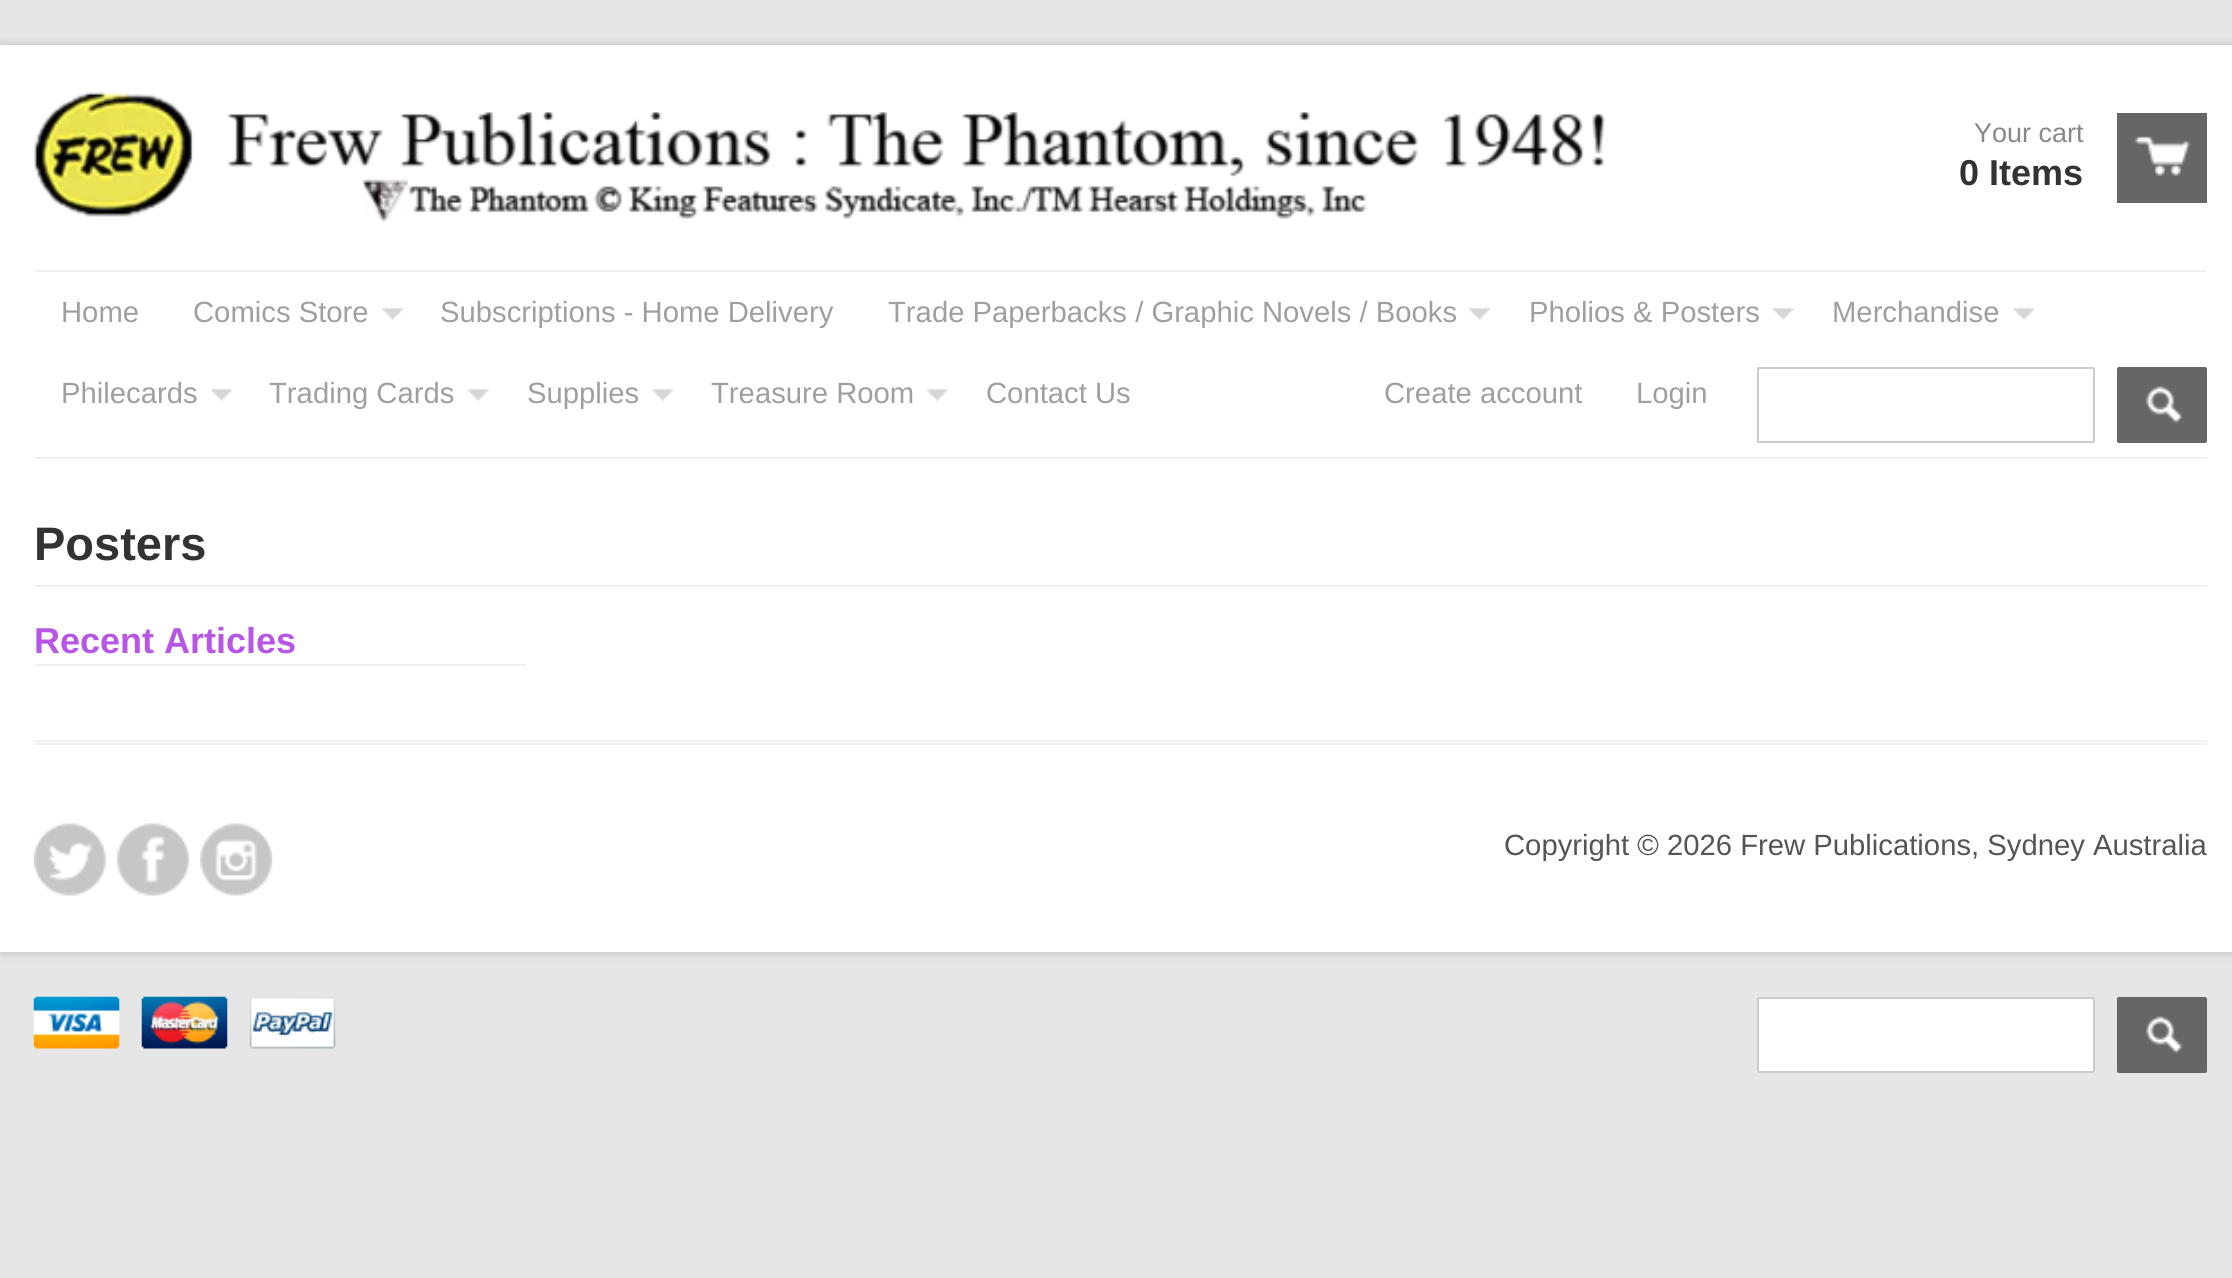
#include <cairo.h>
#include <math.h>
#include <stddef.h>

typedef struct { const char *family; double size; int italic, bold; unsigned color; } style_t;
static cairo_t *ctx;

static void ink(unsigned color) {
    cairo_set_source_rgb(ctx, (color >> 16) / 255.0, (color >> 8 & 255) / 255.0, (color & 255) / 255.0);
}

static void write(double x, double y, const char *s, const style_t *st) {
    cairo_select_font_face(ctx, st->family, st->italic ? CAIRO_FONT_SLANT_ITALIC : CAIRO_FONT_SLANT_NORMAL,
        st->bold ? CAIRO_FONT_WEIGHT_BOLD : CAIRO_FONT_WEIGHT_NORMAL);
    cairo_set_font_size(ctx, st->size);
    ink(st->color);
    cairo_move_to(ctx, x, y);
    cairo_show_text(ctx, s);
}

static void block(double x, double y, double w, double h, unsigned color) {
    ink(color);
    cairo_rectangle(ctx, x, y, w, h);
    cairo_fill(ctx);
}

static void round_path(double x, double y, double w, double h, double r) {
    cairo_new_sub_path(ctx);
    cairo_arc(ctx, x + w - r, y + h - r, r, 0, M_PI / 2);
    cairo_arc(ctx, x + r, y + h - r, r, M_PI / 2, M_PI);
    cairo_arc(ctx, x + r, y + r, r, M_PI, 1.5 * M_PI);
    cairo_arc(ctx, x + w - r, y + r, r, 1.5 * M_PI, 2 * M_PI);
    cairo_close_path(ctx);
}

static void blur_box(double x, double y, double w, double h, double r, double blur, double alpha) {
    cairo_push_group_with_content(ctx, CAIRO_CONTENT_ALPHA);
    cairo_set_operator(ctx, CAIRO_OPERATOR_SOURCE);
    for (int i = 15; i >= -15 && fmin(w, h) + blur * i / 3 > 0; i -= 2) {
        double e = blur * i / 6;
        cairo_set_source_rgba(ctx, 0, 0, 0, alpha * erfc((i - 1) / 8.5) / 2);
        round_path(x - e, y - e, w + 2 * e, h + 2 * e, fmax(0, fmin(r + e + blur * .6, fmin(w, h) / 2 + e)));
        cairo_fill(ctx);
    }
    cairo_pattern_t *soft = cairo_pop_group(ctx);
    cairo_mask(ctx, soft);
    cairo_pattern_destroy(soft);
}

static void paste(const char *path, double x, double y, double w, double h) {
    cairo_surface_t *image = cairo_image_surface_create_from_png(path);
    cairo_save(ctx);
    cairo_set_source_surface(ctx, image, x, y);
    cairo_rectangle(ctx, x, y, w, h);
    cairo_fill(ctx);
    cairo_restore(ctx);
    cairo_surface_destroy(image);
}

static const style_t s1 = {"Liberation Sans", 27, 0, 0, 0x888888};
static const style_t s2 = {"Liberation Sans", 36, 0, 1, 0x333333};
static const style_t s3 = {"Liberation Sans", 29.25, 0, 0, 0x9f9f9f};
static const style_t s4 = {"Liberation Sans", 47, 0, 1, 0x333333};
static const style_t s5 = {"Liberation Sans", 36, 0, 1, 0xb756e5};
static const style_t s6 = {"Liberation Sans", 29.25, 0, 0, 0x555555};

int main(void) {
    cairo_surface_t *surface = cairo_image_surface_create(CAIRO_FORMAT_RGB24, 2232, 1278);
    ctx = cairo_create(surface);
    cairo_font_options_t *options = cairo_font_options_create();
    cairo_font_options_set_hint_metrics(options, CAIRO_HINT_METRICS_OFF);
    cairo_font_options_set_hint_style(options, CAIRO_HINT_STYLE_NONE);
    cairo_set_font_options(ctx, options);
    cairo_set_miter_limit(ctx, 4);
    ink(0xe6e6e6);
    cairo_paint(ctx);
    ink(0x000000);
    blur_box(0, 45, 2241, 907, 0, 4.5, 0.2);
    block(0, 45, 2232, 907, 0xffffff);
    paste("pic1.png", 33, 92, 1572, 131);
    write(1974, 142, "Your cart", &s1);
    write(1959, 185, "0 Items", &s2);
    block(2117, 113, 90, 90, 0x666666);
    paste("pic2.png", 2134, 136, 56, 41);
    block(34, 270, 2173, 2, 0xf0f0f0);
    block(34, 457, 2173, 2, 0xf0f0f0);
    write(61, 322, "Home", &s3);
    paste("pic3.png", 382, 307, 22, 13);
    write(193, 322, "Comics Store", &s3);
    write(440, 322, "Subscriptions - Home Delivery", &s3);
    paste("pic4.png", 1468, 307, 22, 13);
    write(888, 322, "Trade Paperbacks / Graphic Novels / Books", &s3);
    paste("pic5.png", 1772, 307, 22, 13);
    write(1529, 322, "Pholios & Posters", &s3);
    paste("pic6.png", 2013, 307, 22, 13);
    write(1832, 322, "Merchandise", &s3);
    paste("pic3.png", 211, 388, 22, 13);
    write(61, 403, "Philecards", &s3);
    paste("pic7.png", 467, 388, 22, 13);
    write(269, 403, "Trading Cards", &s3);
    paste("pic3.png", 652, 388, 22, 13);
    write(527, 403, "Supplies", &s3);
    paste("pic7.png", 926, 388, 22, 13);
    write(711, 403, "Treasure Room", &s3);
    write(986, 403, "Contact Us", &s3);
    write(1384, 403, "Create account", &s3);
    write(1636, 403, "Login", &s3);
    round_path(1758, 368, 336, 74, 1);
    ink(0xcccccc);
    cairo_stroke(ctx);
    ink(0x666666);
    round_path(2117, 367, 90, 76, 2);
    cairo_fill(ctx);
    paste("pic8.png", 2145, 386, 38, 38);
    block(34, 585, 2173, 2, 0xf0f0f0);
    write(34, 560, "Posters", &s4);
    block(34, 664, 493, 2, 0xf0f0f0);
    write(34, 653, "Recent Articles", &s5);
    block(34, 740, 2173, 2, 0xf0f0f0);
    block(34, 743, 2173, 2, 0xf0f0f0);
    paste("pic9.png", 33, 823, 73, 73);
    paste("pic10.png", 117, 823, 72, 73);
    paste("pic11.png", 200, 823, 73, 73);
    write(1504, 855, "Copyright © 2026 Frew Publications, Sydney Australia", &s6);
    paste("pic12.png", 33, 996, 87, 53);
    paste("pic13.png", 141, 996, 87, 53);
    paste("pic14.png", 249, 997, 87, 52);
    ink(0xffffff);
    round_path(1758, 998, 336, 74, 1);
    cairo_fill_preserve(ctx);
    ink(0xcccccc);
    cairo_stroke(ctx);
    ink(0x666666);
    round_path(2117, 997, 90, 76, 2);
    cairo_fill(ctx);
    paste("pic15.png", 2145, 1016, 38, 38);
    cairo_surface_write_to_png(surface, "screenshot.png");
    cairo_font_options_destroy(options);
    cairo_destroy(ctx);
    cairo_surface_destroy(surface);
    return 0;
}
